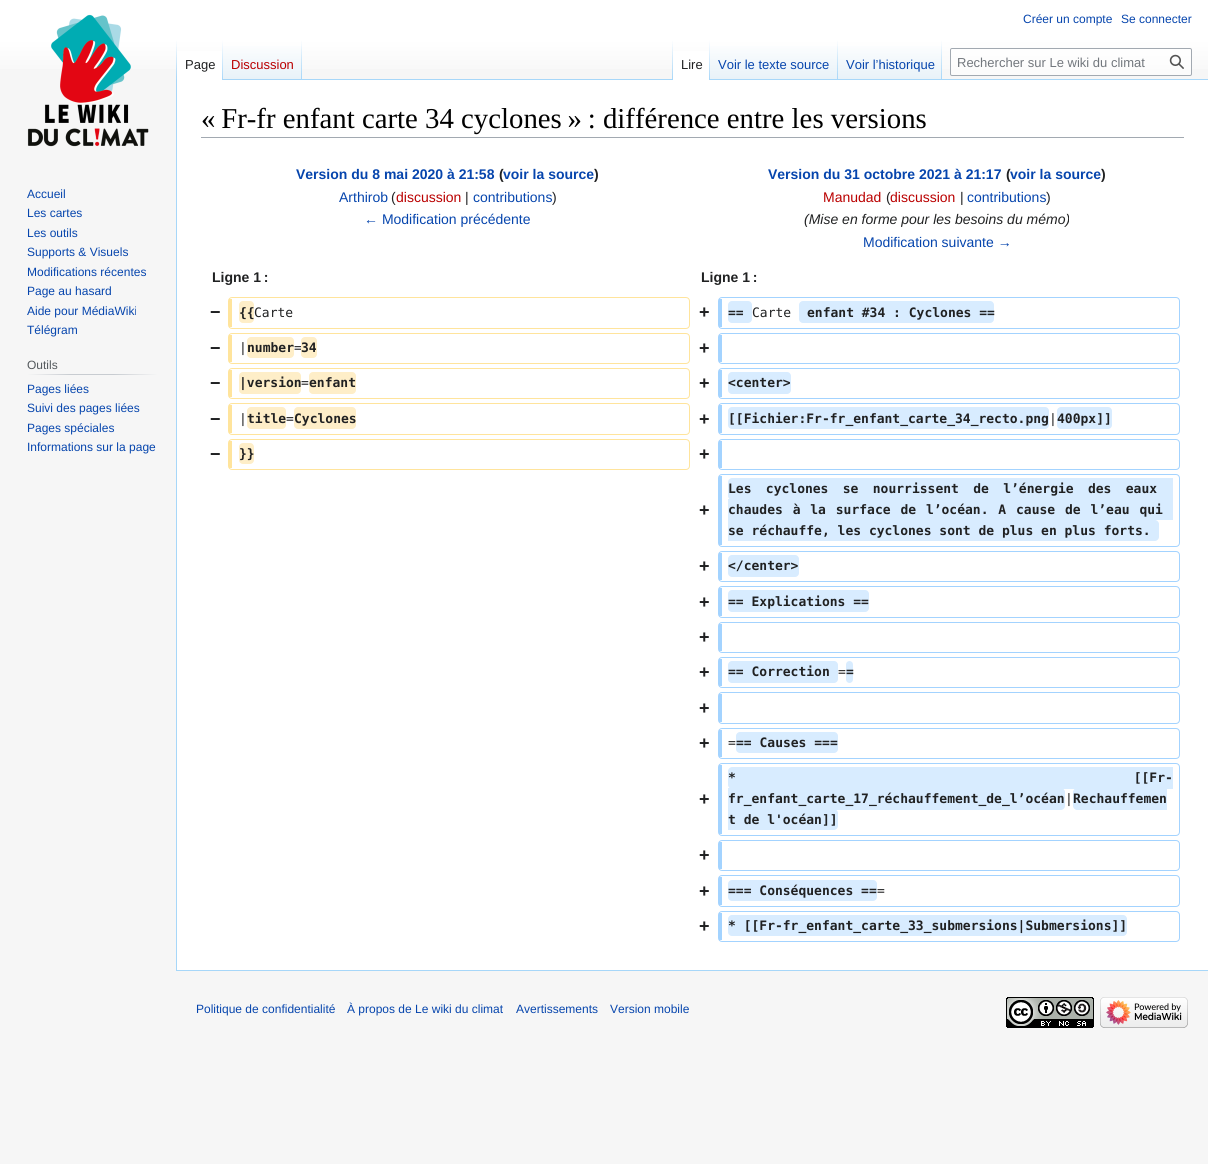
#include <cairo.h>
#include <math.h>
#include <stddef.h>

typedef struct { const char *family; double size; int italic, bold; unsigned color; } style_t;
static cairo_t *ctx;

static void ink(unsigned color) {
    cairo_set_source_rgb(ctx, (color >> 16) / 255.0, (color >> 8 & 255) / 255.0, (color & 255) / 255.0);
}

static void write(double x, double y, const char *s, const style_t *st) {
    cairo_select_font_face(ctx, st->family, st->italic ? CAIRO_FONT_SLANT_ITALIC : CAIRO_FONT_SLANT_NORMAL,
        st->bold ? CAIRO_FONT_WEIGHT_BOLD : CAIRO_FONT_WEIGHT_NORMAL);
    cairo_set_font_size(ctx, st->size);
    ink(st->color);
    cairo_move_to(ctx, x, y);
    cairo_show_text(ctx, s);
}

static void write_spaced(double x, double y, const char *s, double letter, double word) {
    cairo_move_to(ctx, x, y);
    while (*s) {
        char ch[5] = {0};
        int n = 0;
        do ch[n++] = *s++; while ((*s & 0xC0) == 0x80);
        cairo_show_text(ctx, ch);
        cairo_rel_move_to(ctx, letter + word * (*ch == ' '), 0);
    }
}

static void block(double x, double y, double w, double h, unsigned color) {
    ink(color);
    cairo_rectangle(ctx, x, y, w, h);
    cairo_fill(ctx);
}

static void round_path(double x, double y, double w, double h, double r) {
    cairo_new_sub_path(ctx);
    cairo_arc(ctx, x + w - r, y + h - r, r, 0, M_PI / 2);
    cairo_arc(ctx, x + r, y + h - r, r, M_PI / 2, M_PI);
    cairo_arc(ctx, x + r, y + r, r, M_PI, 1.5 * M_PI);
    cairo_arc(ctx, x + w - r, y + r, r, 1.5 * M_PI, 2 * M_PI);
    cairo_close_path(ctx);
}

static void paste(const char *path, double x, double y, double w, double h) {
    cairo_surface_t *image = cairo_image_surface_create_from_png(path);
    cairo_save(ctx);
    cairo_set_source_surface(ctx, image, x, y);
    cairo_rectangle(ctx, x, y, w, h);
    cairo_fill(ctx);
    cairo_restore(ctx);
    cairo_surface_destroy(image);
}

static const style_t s1 = {"Liberation Sans", 12, 0, 0, 0x0645ad};
static const style_t s2 = {"Liberation Sans", 13, 0, 0, 0x202122};
static const style_t s3 = {"Liberation Sans", 13, 0, 0, 0xba0000};
static const style_t s4 = {"Liberation Sans", 13, 0, 0, 0x0645ad};
static const style_t s5 = {"Liberation Sans", 13, 0, 0, 0x72777d};
static const style_t s6 = {"Liberation Sans", 12, 0, 0, 0x54595d};
static const style_t s7 = {"Liberation Serif", 28.8, 0, 0, 0x000000};
static const style_t s8 = {"Liberation Sans", 14, 0, 1, 0x0645ad};
static const style_t s9 = {"Liberation Sans", 14, 0, 1, 0x202122};
static const style_t s10 = {"Liberation Sans", 14, 0, 0, 0x0645ad};
static const style_t s11 = {"Liberation Sans", 14, 0, 0, 0x202122};
static const style_t s12 = {"Liberation Sans", 14, 0, 0, 0xba0000};
static const style_t s13 = {"Liberation Sans", 14, 1, 0, 0x202122};
static const style_t s14 = {"Liberation Sans", 18, 0, 1, 0x202122};
static const style_t s15 = {"DejaVu Sans Mono", 13, 0, 1, 0x202122};
static const style_t s16 = {"DejaVu Sans Mono", 13, 0, 0, 0x202122};

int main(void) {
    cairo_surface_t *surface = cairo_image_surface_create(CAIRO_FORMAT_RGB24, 1208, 1164);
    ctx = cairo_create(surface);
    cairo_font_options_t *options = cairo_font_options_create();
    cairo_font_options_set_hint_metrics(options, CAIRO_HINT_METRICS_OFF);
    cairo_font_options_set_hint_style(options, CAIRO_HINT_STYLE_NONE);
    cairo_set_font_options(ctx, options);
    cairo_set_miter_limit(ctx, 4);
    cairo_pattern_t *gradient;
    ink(0xf6f6f6);
    cairo_paint(ctx);
    gradient = cairo_pattern_create_linear(604, 0, 604, 80);
    cairo_pattern_add_color_stop_rgba(gradient, 0.5, 1, 1, 1, 1);
    cairo_pattern_add_color_stop_rgba(gradient, 1, 0.965, 0.965, 0.965, 1);
    cairo_set_source(ctx, gradient);
    cairo_pattern_destroy(gradient);
    cairo_rectangle(ctx, 0, 0, 1208, 69);
    cairo_fill(ctx);
    write(1023, 23, "Créer un compte", &s1);
    write(1121, 23, "Se connecter", &s1);
    block(176, 970, 1032, 1, 0xa7d7f9);
    block(176, 79, 1, 892, 0xa7d7f9);
    gradient = cairo_pattern_create_linear(177, 40, 177, 80);
    cairo_pattern_add_color_stop_rgba(gradient, 0, 0.655, 0.843, 0.976, 0);
    cairo_pattern_add_color_stop_rgba(gradient, 1, 0.655, 0.843, 0.976, 1);
    cairo_set_source(ctx, gradient);
    cairo_pattern_destroy(gradient);
    cairo_rectangle(ctx, 176, 40, 1, 40);
    cairo_fill(ctx);
    block(177, 51, 45, 29, 0xffffff);
    gradient = cairo_pattern_create_linear(223, 40, 223, 80);
    cairo_pattern_add_color_stop_rgba(gradient, 0, 1, 1, 1, 1);
    cairo_pattern_add_color_stop_rgba(gradient, 1, 0.655, 0.843, 0.976, 1);
    cairo_set_source(ctx, gradient);
    cairo_pattern_destroy(gradient);
    cairo_rectangle(ctx, 222, 40, 1, 40);
    cairo_fill(ctx);
    write(185, 69, "Page", &s2);
    gradient = cairo_pattern_create_linear(263, 80, 263, 40);
    cairo_pattern_add_color_stop_rgba(gradient, 0, 0.467, 0.757, 0.965, 1);
    cairo_pattern_add_color_stop_rgba(gradient, 0.03, 0.91, 0.949, 0.973, 1);
    cairo_pattern_add_color_stop_rgba(gradient, 1, 1, 1, 1, 1);
    cairo_set_source(ctx, gradient);
    cairo_pattern_destroy(gradient);
    cairo_rectangle(ctx, 223, 46, 79, 34);
    cairo_fill(ctx);
    gradient = cairo_pattern_create_linear(302, 40, 302, 80);
    cairo_pattern_add_color_stop_rgba(gradient, 0, 0.655, 0.843, 0.976, 0);
    cairo_pattern_add_color_stop_rgba(gradient, 1, 0.655, 0.843, 0.976, 1);
    cairo_set_source(ctx, gradient);
    cairo_pattern_destroy(gradient);
    cairo_rectangle(ctx, 301, 40, 1, 40);
    cairo_fill(ctx);
    write(231, 69, "Discussion", &s3);
    block(302, 79, 906, 1, 0xa7d7f9);
    gradient = cairo_pattern_create_linear(673, 40, 673, 80);
    cairo_pattern_add_color_stop_rgba(gradient, 0, 0.655, 0.843, 0.976, 0);
    cairo_pattern_add_color_stop_rgba(gradient, 1, 0.655, 0.843, 0.976, 1);
    cairo_set_source(ctx, gradient);
    cairo_pattern_destroy(gradient);
    cairo_rectangle(ctx, 672, 40, 1, 40);
    cairo_fill(ctx);
    block(673, 51, 36, 29, 0xffffff);
    gradient = cairo_pattern_create_linear(710, 40, 710, 80);
    cairo_pattern_add_color_stop_rgba(gradient, 0, 1, 1, 1, 1);
    cairo_pattern_add_color_stop_rgba(gradient, 1, 0.655, 0.843, 0.976, 1);
    cairo_set_source(ctx, gradient);
    cairo_pattern_destroy(gradient);
    cairo_rectangle(ctx, 709, 40, 1, 40);
    cairo_fill(ctx);
    write(681, 69, "Lire", &s2);
    gradient = cairo_pattern_create_linear(774, 80, 774, 40);
    cairo_pattern_add_color_stop_rgba(gradient, 0, 0.467, 0.757, 0.965, 1);
    cairo_pattern_add_color_stop_rgba(gradient, 0.03, 0.91, 0.949, 0.973, 1);
    cairo_pattern_add_color_stop_rgba(gradient, 1, 1, 1, 1, 1);
    cairo_set_source(ctx, gradient);
    cairo_pattern_destroy(gradient);
    cairo_rectangle(ctx, 710, 46, 128, 33);
    cairo_fill(ctx);
    gradient = cairo_pattern_create_linear(838, 40, 838, 80);
    cairo_pattern_add_color_stop_rgba(gradient, 0, 0.655, 0.843, 0.976, 0);
    cairo_pattern_add_color_stop_rgba(gradient, 1, 0.655, 0.843, 0.976, 1);
    cairo_set_source(ctx, gradient);
    cairo_pattern_destroy(gradient);
    cairo_rectangle(ctx, 837, 40, 1, 40);
    cairo_fill(ctx);
    write(718, 69, "Voir le texte source", &s4);
    gradient = cairo_pattern_create_linear(890, 80, 890, 40);
    cairo_pattern_add_color_stop_rgba(gradient, 0, 0.467, 0.757, 0.965, 1);
    cairo_pattern_add_color_stop_rgba(gradient, 0.03, 0.91, 0.949, 0.973, 1);
    cairo_pattern_add_color_stop_rgba(gradient, 1, 1, 1, 1, 1);
    cairo_set_source(ctx, gradient);
    cairo_pattern_destroy(gradient);
    cairo_rectangle(ctx, 838, 46, 104, 33);
    cairo_fill(ctx);
    gradient = cairo_pattern_create_linear(942, 40, 942, 80);
    cairo_pattern_add_color_stop_rgba(gradient, 0, 0.655, 0.843, 0.976, 0);
    cairo_pattern_add_color_stop_rgba(gradient, 1, 0.655, 0.843, 0.976, 1);
    cairo_set_source(ctx, gradient);
    cairo_pattern_destroy(gradient);
    cairo_rectangle(ctx, 941, 40, 1, 40);
    cairo_fill(ctx);
    write(846, 69, "Voir l’historique", &s4);
    cairo_set_source_rgba(ctx, 1, 1, 1, 0.5);
    round_path(950.5, 48.5, 241, 27, 1.5);
    cairo_fill_preserve(ctx);
    ink(0xa2a9b1);
    cairo_set_line_width(ctx, 1);
    cairo_stroke(ctx);
    write(957, 67, "Rechercher sur Le wiki du climat", &s5);
    paste("pic1.png", 1169, 54, 15, 15);
    paste("pic2.png", 27, 14, 122, 133);
    write(27, 198, "Accueil", &s1);
    write(27, 217, "Les cartes", &s1);
    write(27, 237, "Les outils", &s1);
    write(27, 256, "Supports & Visuels", &s1);
    write(27, 276, "Modifications récentes", &s1);
    write(27, 295, "Page au hasard", &s1);
    write(27, 315, "Aide pour MédiaWiki", &s1);
    write(27, 334, "Télégram", &s1);
    gradient = cairo_pattern_create_linear(27, 375, 158, 375);
    cairo_pattern_add_color_stop_rgba(gradient, 0, 0.965, 0.965, 0.965, 1);
    cairo_pattern_add_color_stop_rgba(gradient, 0.33, 0.784, 0.8, 0.82, 1);
    cairo_pattern_add_color_stop_rgba(gradient, 0.66, 0.784, 0.8, 0.82, 1);
    cairo_pattern_add_color_stop_rgba(gradient, 1, 0.965, 0.965, 0.965, 1);
    cairo_set_source(ctx, gradient);
    cairo_pattern_destroy(gradient);
    cairo_rectangle(ctx, 27, 374, 131, 1);
    cairo_fill(ctx);
    write(27, 369, "Outils", &s6);
    write(27, 393, "Pages liées", &s1);
    write(27, 412, "Suivi des pages liées", &s1);
    write(27, 432, "Pages spéciales", &s1);
    write(27, 451, "Informations sur la page", &s1);
    block(177, 80, 1031, 890, 0xffffff);
    block(201, 137, 983, 1, 0xa2a9b1);
    write(201, 128, "« Fr-fr enfant carte 34 cyclones » : différence entre les versions", &s7);
    write(296, 179, "Version du 8 mai 2020 à 21:58", &s8);
    write(499, 179, "(", &s9);
    write(503, 179, "voir la source", &s8);
    write(594, 179, ")", &s9);
    write(339, 202, "Arthirob", &s10);
    write(391, 202, "(", &s11);
    write(396, 202, "discussion", &s12);
    write(465, 202, "|", &s11);
    write(473, 202, "contributions", &s10);
    write(552, 202, ")", &s11);
    write(364, 224, "← Modification précédente", &s10);
    write(768, 179, "Version du 31 octobre 2021 à 21:17", &s8);
    write(1006, 179, "(", &s9);
    write(1010, 179, "voir la source", &s8);
    write(1101, 179, ")", &s9);
    write(823, 202, "Manudad", &s12);
    write(886, 202, "(", &s11);
    write(890, 202, "discussion", &s12);
    write(960, 202, "|", &s11);
    write(967, 202, "contributions", &s10);
    write(1046, 202, ")", &s11);
    write(804, 224, "(Mise en forme pour les besoins du mémo)", &s13);
    write(863, 247, "Modification suivante →", &s10);
    write(212, 282, "Ligne 1 :", &s9);
    write(701, 282, "Ligne 1 :", &s9);
    write(210, 318, "−", &s14);
    round_path(228.5, 297.5, 461, 31, 3.5);
    ink(0xffe49c);
    cairo_stroke(ctx);
    block(229, 299, 3, 28, 0xffe49c);
    ink(0xfeeec8);
    round_path(239, 301, 15, 22, 4);
    cairo_fill(ctx);
    write(239, 317, "{{", &s15);
    write(254, 317, "Carte", &s16);
    write(699, 318, "+", &s14);
    round_path(718.5, 297.5, 461, 31, 3.5);
    ink(0xa3d3ff);
    cairo_stroke(ctx);
    block(719, 299, 3, 28, 0xa3d3ff);
    ink(0xd8ecff);
    round_path(728, 301, 24, 22, 4);
    cairo_fill(ctx);
    write(728, 317, "==", &s15);
    write(752, 317, "Carte", &s16);
    ink(0xd8ecff);
    round_path(799, 301, 195, 22, 4);
    cairo_fill(ctx);
    write(807, 317, "enfant #34 : Cyclones ==", &s15);
    write(210, 354, "−", &s14);
    round_path(228.5, 333.5, 461, 30, 3.5);
    ink(0xffe49c);
    cairo_stroke(ctx);
    block(229, 335, 3, 27, 0xffe49c);
    write(239, 352, "|", &s16);
    ink(0xfeeec8);
    round_path(247, 337, 47, 21, 4);
    cairo_fill(ctx);
    write(247, 352, "number", &s15);
    write(294, 352, "=", &s16);
    ink(0xfeeec8);
    round_path(301, 337, 16, 21, 4);
    cairo_fill(ctx);
    write(301, 352, "34", &s15);
    write(699, 354, "+", &s14);
    round_path(718.5, 333.5, 461, 30, 3.5);
    ink(0xa3d3ff);
    cairo_stroke(ctx);
    block(719, 335, 3, 27, 0xa3d3ff);
    write(210, 389, "−", &s14);
    round_path(228.5, 368.5, 461, 30, 3.5);
    ink(0xffe49c);
    cairo_stroke(ctx);
    block(229, 370, 3, 27, 0xffe49c);
    ink(0xfeeec8);
    round_path(239, 372, 62, 22, 4);
    cairo_fill(ctx);
    write(239, 387, "|version", &s15);
    write(301, 387, "=", &s16);
    ink(0xfeeec8);
    round_path(309, 372, 47, 22, 4);
    cairo_fill(ctx);
    write(309, 387, "enfant", &s15);
    write(699, 389, "+", &s14);
    round_path(718.5, 368.5, 461, 30, 3.5);
    ink(0xa3d3ff);
    cairo_stroke(ctx);
    block(719, 370, 3, 27, 0xa3d3ff);
    ink(0xd8ecff);
    round_path(728, 372, 63, 22, 4);
    cairo_fill(ctx);
    write(728, 387, "<center>", &s15);
    write(210, 425, "−", &s14);
    round_path(228.5, 403.5, 461, 31, 3.5);
    ink(0xffe49c);
    cairo_stroke(ctx);
    block(229, 405, 3, 28, 0xffe49c);
    write(239, 423, "|", &s16);
    ink(0xfeeec8);
    round_path(247, 407, 39, 22, 4);
    cairo_fill(ctx);
    write(247, 423, "title", &s15);
    write(286, 423, "=", &s16);
    ink(0xfeeec8);
    round_path(294, 407, 62, 22, 4);
    cairo_fill(ctx);
    write(294, 423, "Cyclones", &s15);
    write(699, 425, "+", &s14);
    round_path(718.5, 403.5, 461, 31, 3.5);
    ink(0xa3d3ff);
    cairo_stroke(ctx);
    block(719, 405, 3, 28, 0xa3d3ff);
    ink(0xd8ecff);
    round_path(728, 407, 321, 22, 4);
    cairo_fill(ctx);
    write(728, 423, "[[Fichier:Fr-fr_enfant_carte_34_recto.png", &s15);
    write(1049, 423, "|", &s16);
    ink(0xd8ecff);
    round_path(1057, 407, 55, 22, 4);
    cairo_fill(ctx);
    write(1057, 423, "400px]]", &s15);
    write(210, 460, "−", &s14);
    round_path(228.5, 439.5, 461, 30, 3.5);
    ink(0xffe49c);
    cairo_stroke(ctx);
    block(229, 441, 3, 27, 0xffe49c);
    ink(0xfeeec8);
    round_path(239, 443, 15, 21, 4);
    cairo_fill(ctx);
    write(239, 458, "}}", &s15);
    write(699, 460, "+", &s14);
    round_path(718.5, 439.5, 461, 30, 3.5);
    ink(0xa3d3ff);
    cairo_stroke(ctx);
    block(719, 441, 3, 27, 0xa3d3ff);
    write(699, 516, "+", &s14);
    round_path(718.5, 474.5, 461, 72, 3.5);
    ink(0xa3d3ff);
    cairo_stroke(ctx);
    block(719, 476, 3, 69, 0xa3d3ff);
    ink(0xd8ecff);
    cairo_new_path(ctx);
    cairo_move_to(ctx, 732, 478);
    cairo_line_to(ctx, 1173, 478);
    cairo_line_to(ctx, 1173, 500);
    cairo_line_to(ctx, 732, 500);
    cairo_curve_to(ctx, 730, 500, 728, 498, 728, 496);
    cairo_line_to(ctx, 728, 482);
    cairo_curve_to(ctx, 728, 480, 730, 478, 732, 478);
    cairo_close_path(ctx);
    cairo_fill(ctx);
    cairo_select_font_face(ctx, "DejaVu Sans Mono", CAIRO_FONT_SLANT_NORMAL, CAIRO_FONT_WEIGHT_BOLD);
    cairo_set_font_size(ctx, 13);
    ink(0x202122);
    write_spaced(728, 493, "Les cyclones se nourrissent de l’énergie des eaux", 0, 6.5);
    block(728, 499, 445, 21, 0xd8ecff);
    ink(0x202122);
    write_spaced(728, 514, "chaudes à la surface de l’océan. A cause de l’eau qui", 0, 2);
    ink(0xd8ecff);
    cairo_new_path(ctx);
    cairo_move_to(ctx, 728, 520);
    cairo_line_to(ctx, 1155, 520);
    cairo_curve_to(ctx, 1157, 520, 1159, 522, 1159, 524);
    cairo_line_to(ctx, 1159, 537);
    cairo_curve_to(ctx, 1159, 539, 1157, 541, 1155, 541);
    cairo_line_to(ctx, 728, 541);
    cairo_close_path(ctx);
    cairo_fill(ctx);
    write(728, 535, "se réchauffe, les cyclones sont de plus en plus forts.", &s15);
    write(699, 572, "+", &s14);
    round_path(718.5, 551.5, 461, 30, 3.5);
    ink(0xa3d3ff);
    cairo_stroke(ctx);
    block(719, 553, 3, 27, 0xa3d3ff);
    ink(0xd8ecff);
    round_path(728, 555, 71, 22, 4);
    cairo_fill(ctx);
    write(728, 570, "</center>", &s15);
    write(699, 608, "+", &s14);
    round_path(718.5, 586.5, 461, 31, 3.5);
    ink(0xa3d3ff);
    cairo_stroke(ctx);
    block(719, 588, 3, 28, 0xa3d3ff);
    ink(0xd8ecff);
    round_path(728, 590, 141, 22, 4);
    cairo_fill(ctx);
    write(728, 606, "== Explications ==", &s15);
    write(699, 643, "+", &s14);
    round_path(718.5, 622.5, 461, 30, 3.5);
    ink(0xa3d3ff);
    cairo_stroke(ctx);
    block(719, 624, 3, 27, 0xa3d3ff);
    write(699, 678, "+", &s14);
    round_path(718.5, 657.5, 461, 30, 3.5);
    ink(0xa3d3ff);
    cairo_stroke(ctx);
    block(719, 659, 3, 27, 0xa3d3ff);
    ink(0xd8ecff);
    round_path(728, 661, 110, 22, 4);
    cairo_fill(ctx);
    write(728, 676, "== Correction", &s15);
    write(838, 676, "=", &s16);
    ink(0xd8ecff);
    round_path(846, 661, 7, 22, 3.5);
    cairo_fill(ctx);
    write(846, 676, "=", &s15);
    write(699, 714, "+", &s14);
    round_path(718.5, 692.5, 461, 31, 3.5);
    ink(0xa3d3ff);
    cairo_stroke(ctx);
    block(719, 694, 3, 28, 0xa3d3ff);
    write(699, 749, "+", &s14);
    round_path(718.5, 728.5, 461, 30, 3.5);
    ink(0xa3d3ff);
    cairo_stroke(ctx);
    block(719, 730, 3, 27, 0xa3d3ff);
    write(728, 747, "=", &s16);
    ink(0xd8ecff);
    round_path(736, 732, 102, 21, 4);
    cairo_fill(ctx);
    write(736, 747, "== Causes ===", &s15);
    write(699, 805, "+", &s14);
    round_path(718.5, 763.5, 461, 72, 3.5);
    ink(0xa3d3ff);
    cairo_stroke(ctx);
    block(719, 765, 3, 69, 0xa3d3ff);
    ink(0xd8ecff);
    cairo_new_path(ctx);
    cairo_move_to(ctx, 732, 767);
    cairo_line_to(ctx, 1173, 767);
    cairo_line_to(ctx, 1173, 789);
    cairo_line_to(ctx, 732, 789);
    cairo_curve_to(ctx, 730, 789, 728, 787, 728, 785);
    cairo_line_to(ctx, 728, 771);
    cairo_curve_to(ctx, 728, 769, 730, 767, 732, 767);
    cairo_close_path(ctx);
    cairo_fill(ctx);
    cairo_select_font_face(ctx, "DejaVu Sans Mono", CAIRO_FONT_SLANT_NORMAL, CAIRO_FONT_WEIGHT_BOLD);
    cairo_set_font_size(ctx, 13);
    ink(0x202122);
    write_spaced(728, 782, "* [[Fr-", 0, 390);
    ink(0xd8ecff);
    cairo_new_path(ctx);
    cairo_move_to(ctx, 728, 788);
    cairo_line_to(ctx, 1061, 788);
    cairo_curve_to(ctx, 1063, 788, 1065, 790, 1065, 792);
    cairo_line_to(ctx, 1065, 806);
    cairo_curve_to(ctx, 1065, 808, 1063, 810, 1061, 810);
    cairo_line_to(ctx, 728, 810);
    cairo_close_path(ctx);
    cairo_fill(ctx);
    write(728, 803, "fr_enfant_carte_17_réchauffement_de_l’océan", &s15);
    write(1065, 803, "|", &s16);
    ink(0xd8ecff);
    cairo_new_path(ctx);
    cairo_move_to(ctx, 1077, 788);
    cairo_line_to(ctx, 1167, 788);
    cairo_line_to(ctx, 1167, 810);
    cairo_line_to(ctx, 1077, 810);
    cairo_curve_to(ctx, 1075, 810, 1073, 808, 1073, 806);
    cairo_line_to(ctx, 1073, 792);
    cairo_curve_to(ctx, 1073, 790, 1075, 788, 1077, 788);
    cairo_close_path(ctx);
    cairo_fill(ctx);
    write(1073, 803, "Rechauffemen", &s15);
    ink(0xd8ecff);
    cairo_new_path(ctx);
    cairo_move_to(ctx, 728, 809);
    cairo_line_to(ctx, 834, 809);
    cairo_curve_to(ctx, 836, 809, 838, 811, 838, 813);
    cairo_line_to(ctx, 838, 826);
    cairo_curve_to(ctx, 838, 828, 836, 830, 834, 830);
    cairo_line_to(ctx, 728, 830);
    cairo_close_path(ctx);
    cairo_fill(ctx);
    write(728, 824, "t de l'océan]]", &s15);
    write(699, 861, "+", &s14);
    round_path(718.5, 840.5, 461, 30, 3.5);
    ink(0xa3d3ff);
    cairo_stroke(ctx);
    block(719, 842, 3, 27, 0xa3d3ff);
    write(699, 897, "+", &s14);
    round_path(718.5, 875.5, 461, 31, 3.5);
    ink(0xa3d3ff);
    cairo_stroke(ctx);
    block(719, 877, 3, 28, 0xa3d3ff);
    ink(0xd8ecff);
    round_path(728, 880, 149, 21, 4);
    cairo_fill(ctx);
    write(728, 895, "=== Conséquences ==", &s15);
    write(877, 895, "=", &s16);
    write(699, 932, "+", &s14);
    round_path(718.5, 911.5, 461, 30, 3.5);
    ink(0xa3d3ff);
    cairo_stroke(ctx);
    block(719, 913, 3, 27, 0xa3d3ff);
    ink(0xd8ecff);
    round_path(728, 915, 399, 21, 4);
    cairo_fill(ctx);
    write(728, 930, "* [[Fr-fr_enfant_carte_33_submersions|Submersions]]", &s15);
    write(196, 1013, "Politique de confidentialité", &s1);
    write(347, 1013, "À propos de Le wiki du climat", &s1);
    write(516, 1013, "Avertissements", &s1);
    write(610, 1013, "Version mobile", &s1);
    paste("pic3.png", 1006, 997, 88, 31);
    paste("pic4.png", 1100, 997, 88, 31);
    cairo_surface_write_to_png(surface, "screenshot.png");
    cairo_font_options_destroy(options);
    cairo_destroy(ctx);
    cairo_surface_destroy(surface);
    return 0;
}
